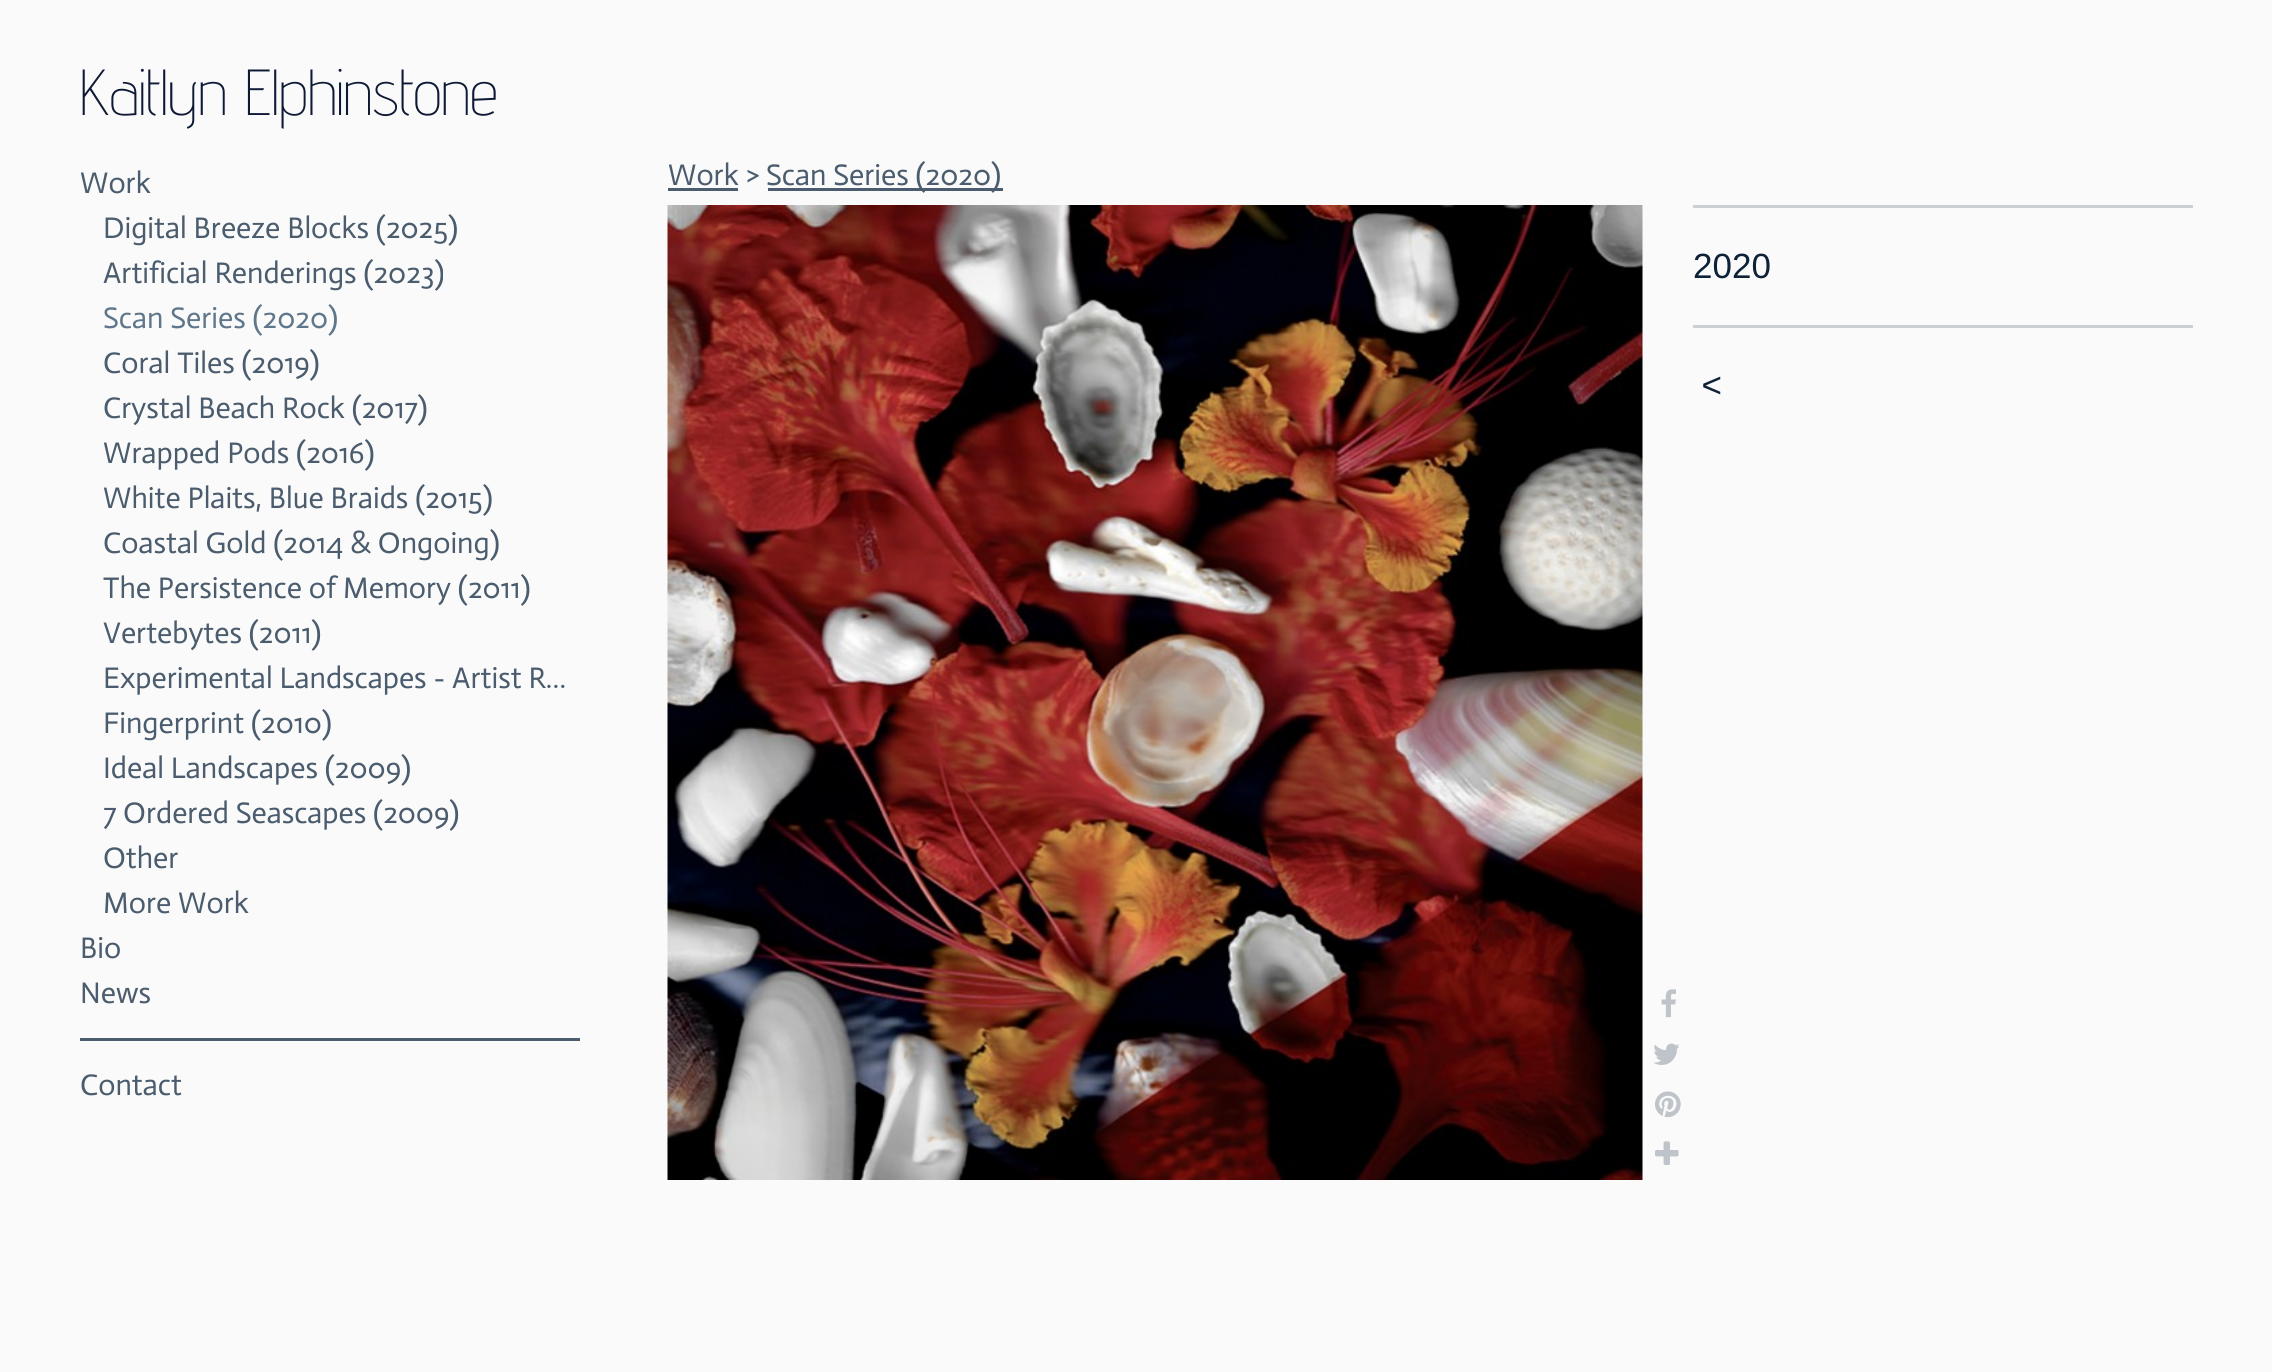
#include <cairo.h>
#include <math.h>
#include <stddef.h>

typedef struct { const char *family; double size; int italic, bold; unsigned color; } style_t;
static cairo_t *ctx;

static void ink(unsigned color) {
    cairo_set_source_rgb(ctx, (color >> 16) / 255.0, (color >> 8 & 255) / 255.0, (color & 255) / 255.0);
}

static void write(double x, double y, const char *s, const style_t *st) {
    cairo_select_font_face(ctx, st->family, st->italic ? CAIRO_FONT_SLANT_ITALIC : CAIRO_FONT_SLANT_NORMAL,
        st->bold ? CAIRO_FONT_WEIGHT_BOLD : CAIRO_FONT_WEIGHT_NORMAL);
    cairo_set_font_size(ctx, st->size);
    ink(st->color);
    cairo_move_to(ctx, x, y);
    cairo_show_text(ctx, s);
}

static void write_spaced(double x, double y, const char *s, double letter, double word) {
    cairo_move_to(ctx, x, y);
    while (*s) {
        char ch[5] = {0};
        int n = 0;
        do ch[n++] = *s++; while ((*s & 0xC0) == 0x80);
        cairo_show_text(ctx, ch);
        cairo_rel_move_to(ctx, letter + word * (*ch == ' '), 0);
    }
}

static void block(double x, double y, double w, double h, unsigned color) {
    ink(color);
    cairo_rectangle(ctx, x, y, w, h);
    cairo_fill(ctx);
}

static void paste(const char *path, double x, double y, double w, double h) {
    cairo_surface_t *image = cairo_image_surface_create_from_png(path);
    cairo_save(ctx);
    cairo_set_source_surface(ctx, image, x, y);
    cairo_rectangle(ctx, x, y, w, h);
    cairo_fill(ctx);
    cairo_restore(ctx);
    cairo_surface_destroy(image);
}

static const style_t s1 = {"Advent Pro ExtraLight", 65, 0, 0, 0x0e1935};
static const style_t s2 = {"Actor", 30, 0, 0, 0x4a5c6d};
static const style_t s3 = {"Actor", 30, 0, 0, 0x5f768b};
static const style_t s4 = {"Liberation Sans", 35, 0, 0, 0x0d2236};

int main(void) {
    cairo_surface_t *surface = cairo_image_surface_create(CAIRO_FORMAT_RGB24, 2272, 1372);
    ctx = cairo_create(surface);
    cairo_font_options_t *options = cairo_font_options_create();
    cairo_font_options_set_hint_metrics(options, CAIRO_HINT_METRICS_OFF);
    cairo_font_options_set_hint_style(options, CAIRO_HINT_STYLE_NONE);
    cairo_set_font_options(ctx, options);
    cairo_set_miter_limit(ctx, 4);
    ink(0xfafafa);
    cairo_paint(ctx);
    write(80, 115, "Kaitlyn Elphinstone", &s1);
    write(80, 193, "Work", &s2);
    write(103, 238, "Digital Breeze Blocks (2025)", &s2);
    write(103, 283, "Artificial Renderings (2023)", &s2);
    write(103, 328, "Scan Series (2020)", &s3);
    write(103, 373, "Coral Tiles (2019)", &s2);
    write(103, 418, "Crystal Beach Rock (2017)", &s2);
    write(103, 463, "Wrapped Pods (2016)", &s2);
    write(103, 508, "White Plaits, Blue Braids (2015)", &s2);
    write(103, 553, "Coastal Gold (2014 & Ongoing)", &s2);
    write(103, 598, "The Persistence of Memory (2011)", &s2);
    write(103, 643, "Vertebytes (2011)", &s2);
    write(103, 688, "Experimental Landscapes - Artist R…", &s2);
    write(103, 733, "Fingerprint (2010)", &s2);
    write(103, 778, "Ideal Landscapes (2009)", &s2);
    write(103, 823, "7 Ordered Seascapes (2009)", &s2);
    write(103, 868, "Other", &s2);
    write(103, 913, "More Work", &s2);
    write(80, 958, "Bio", &s2);
    write(80, 1003, "News", &s2);
    block(80, 1038, 500, 3, 0x4a5c6d);
    write(80, 1095, "Contact", &s2);
    write(668, 185, "Work >", &s2);
    block(668, 188, 70, 3, 0x4a5c6d);
    block(768, 188, 235, 3, 0x4a5c6d);
    write(766, 185, "Scan Series (2020)", &s2);
    paste("pic1.png", 667, 205, 976, 975);
    paste("pic2.png", 1661, 989, 15, 29);
    paste("pic3.png", 1653, 1043, 27, 22);
    paste("pic4.png", 1655, 1091, 26, 27);
    paste("pic5.png", 1655, 1141, 24, 24);
    block(1693, 205, 500, 3, 0xcbcfd3);
    write(1693, 278, "2020", &s4);
    block(1693, 325, 500, 3, 0xcbcfd3);
    cairo_select_font_face(ctx, "Liberation Sans", CAIRO_FONT_SLANT_ITALIC, CAIRO_FONT_WEIGHT_NORMAL);
    ink(0x0d2236);
    write_spaced(1701, 397, "<", 2, 0);
    cairo_surface_write_to_png(surface, "screenshot.png");
    cairo_font_options_destroy(options);
    cairo_destroy(ctx);
    cairo_surface_destroy(surface);
    return 0;
}
